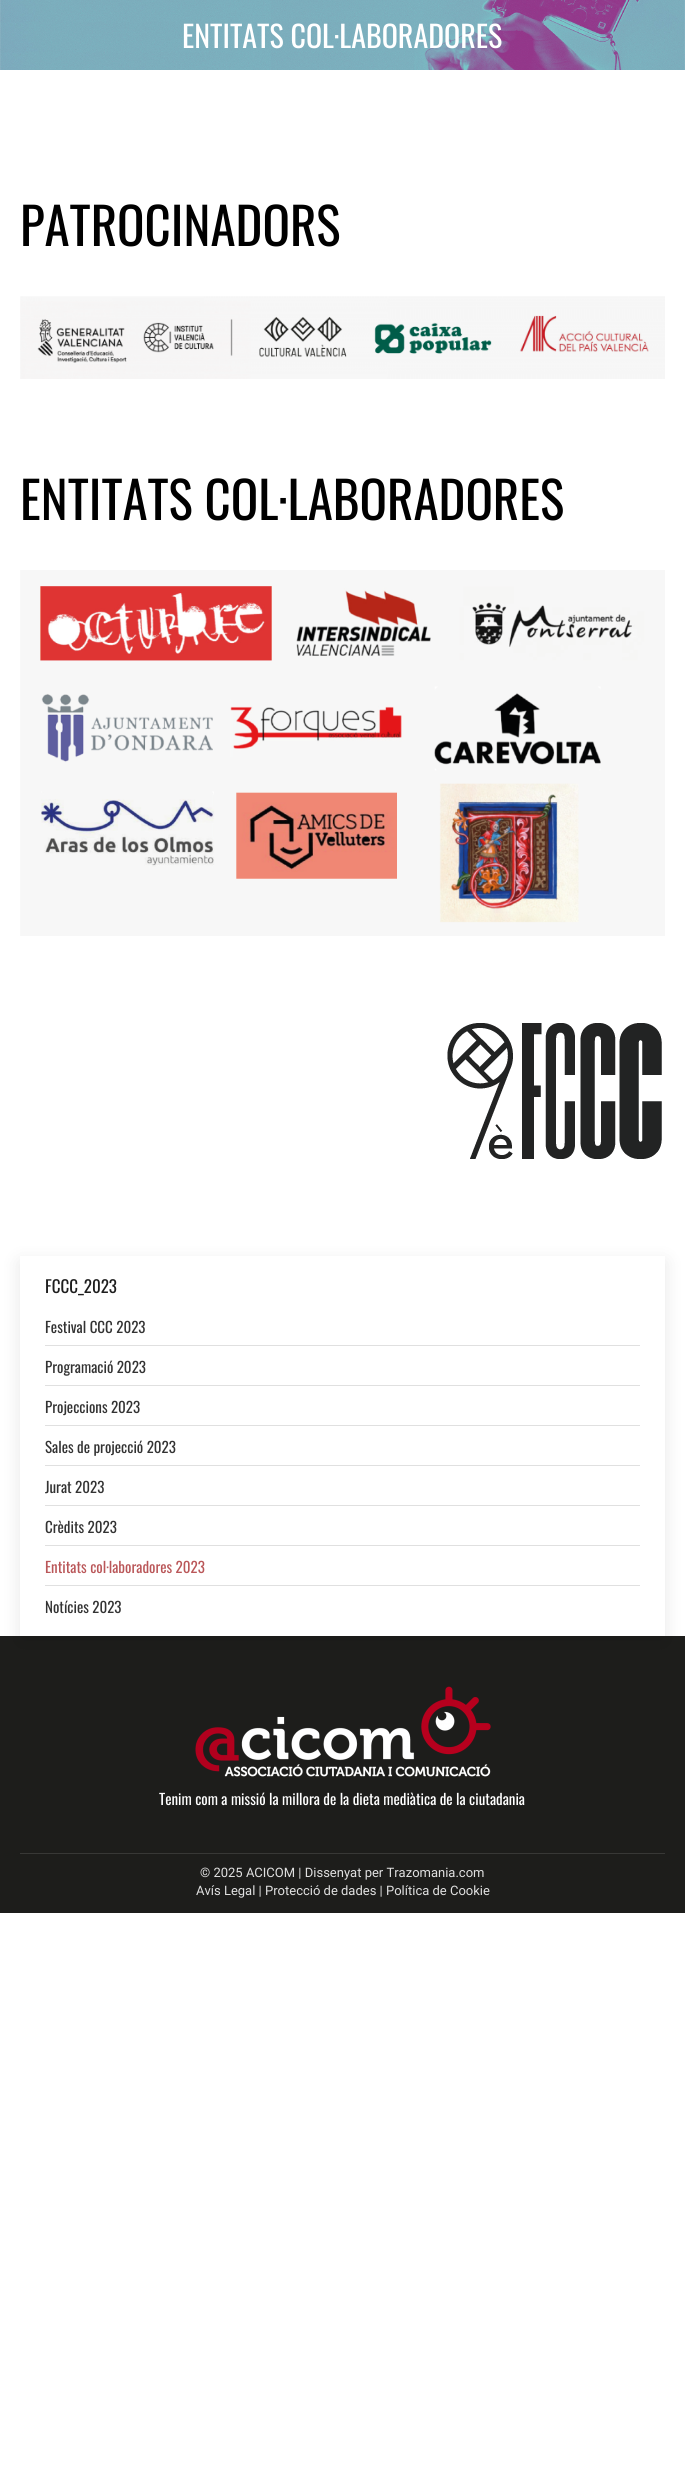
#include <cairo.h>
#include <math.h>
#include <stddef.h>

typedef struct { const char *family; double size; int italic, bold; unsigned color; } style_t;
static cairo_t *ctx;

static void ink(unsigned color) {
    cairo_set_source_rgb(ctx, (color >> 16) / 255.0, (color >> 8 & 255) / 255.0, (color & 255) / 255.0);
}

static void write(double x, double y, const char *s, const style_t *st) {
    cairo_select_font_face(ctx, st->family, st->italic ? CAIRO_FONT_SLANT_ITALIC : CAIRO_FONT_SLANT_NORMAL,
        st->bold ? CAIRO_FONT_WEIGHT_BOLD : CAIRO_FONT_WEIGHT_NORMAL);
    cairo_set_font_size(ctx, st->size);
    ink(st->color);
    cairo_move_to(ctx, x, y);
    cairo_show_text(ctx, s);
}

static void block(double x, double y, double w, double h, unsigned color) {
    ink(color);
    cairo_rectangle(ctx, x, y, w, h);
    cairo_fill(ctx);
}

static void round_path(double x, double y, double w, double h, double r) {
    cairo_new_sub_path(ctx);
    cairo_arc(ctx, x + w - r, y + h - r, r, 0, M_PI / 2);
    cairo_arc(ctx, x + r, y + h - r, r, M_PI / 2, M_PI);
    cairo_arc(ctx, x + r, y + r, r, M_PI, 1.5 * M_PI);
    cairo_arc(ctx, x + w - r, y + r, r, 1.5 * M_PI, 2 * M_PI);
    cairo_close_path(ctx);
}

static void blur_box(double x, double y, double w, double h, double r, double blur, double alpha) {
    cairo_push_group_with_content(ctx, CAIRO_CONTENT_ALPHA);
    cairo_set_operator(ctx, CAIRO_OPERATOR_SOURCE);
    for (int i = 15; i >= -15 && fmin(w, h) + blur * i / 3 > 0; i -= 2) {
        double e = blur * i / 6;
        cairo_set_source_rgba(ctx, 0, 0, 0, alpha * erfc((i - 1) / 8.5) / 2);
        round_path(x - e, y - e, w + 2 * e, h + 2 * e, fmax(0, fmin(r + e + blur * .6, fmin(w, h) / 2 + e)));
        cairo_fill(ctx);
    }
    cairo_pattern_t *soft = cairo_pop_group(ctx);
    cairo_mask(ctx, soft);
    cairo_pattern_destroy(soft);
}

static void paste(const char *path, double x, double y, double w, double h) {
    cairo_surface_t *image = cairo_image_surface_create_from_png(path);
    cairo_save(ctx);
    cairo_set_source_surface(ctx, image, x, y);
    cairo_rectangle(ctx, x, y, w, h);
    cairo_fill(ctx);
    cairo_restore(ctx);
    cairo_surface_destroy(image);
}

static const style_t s1 = {"Oswald", 30, 0, 0, 0xffffff};
static const style_t s2 = {"Oswald", 51, 0, 0, 0x000000};
static const style_t s3 = {"Oswald", 17, 0, 0, 0x1e1e1e};
static const style_t s4 = {"Oswald", 15, 0, 0, 0x333333};
static const style_t s5 = {"Oswald", 15, 0, 0, 0xba5759};
static const style_t s6 = {"Oswald", 15, 0, 0, 0xffffff};
static const style_t s7 = {"Roboto", 13, 0, 0, 0xe0e0e0};

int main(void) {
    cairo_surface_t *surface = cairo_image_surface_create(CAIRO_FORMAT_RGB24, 685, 2474);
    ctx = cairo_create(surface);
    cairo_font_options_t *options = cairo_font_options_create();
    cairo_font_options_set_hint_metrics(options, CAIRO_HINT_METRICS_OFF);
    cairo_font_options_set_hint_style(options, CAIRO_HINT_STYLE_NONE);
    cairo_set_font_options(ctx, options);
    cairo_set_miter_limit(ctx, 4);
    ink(0xffffff);
    cairo_paint(ctx);
    paste("pic1.png", 0, 0, 685, 70);
    write(182, 48, "ENTITATS COL·LABORADORES", &s1);
    write(20, 246, "PATROCINADORS", &s2);
    paste("pic2.png", 20, 296, 645, 83);
    write(20, 520, "ENTITATS COL·LABORADORES", &s2);
    paste("pic3.png", 20, 570, 645, 366);
    paste("pic4.png", 447, 1023, 215, 136);
    block(0, 1636, 685, 277, 0x1d1d1b);
    cairo_save(ctx);
    cairo_set_fill_rule(ctx, CAIRO_FILL_RULE_EVEN_ODD);
    cairo_new_path(ctx);
    cairo_move_to(ctx, 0, 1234);
    cairo_line_to(ctx, 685, 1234);
    cairo_line_to(ctx, 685, 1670);
    cairo_line_to(ctx, 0, 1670);
    cairo_close_path(ctx);
    cairo_move_to(ctx, 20, 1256);
    cairo_line_to(ctx, 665, 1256);
    cairo_line_to(ctx, 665, 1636);
    cairo_line_to(ctx, 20, 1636);
    cairo_close_path(ctx);
    cairo_clip(ctx);
    ink(0x000000);
    blur_box(20, 1262, 645, 380, 0, 9, 0.1);
    cairo_restore(ctx);
    write(45, 1293, "FCCC_2023", &s3);
    write(45, 1333, "Festival CCC 2023", &s4);
    block(45, 1345, 595, 1, 0xe0e0e0);
    write(45, 1373, "Programació 2023", &s4);
    block(45, 1385, 595, 1, 0xe0e0e0);
    write(45, 1413, "Projeccions 2023", &s4);
    block(45, 1425, 595, 1, 0xe0e0e0);
    write(45, 1453, "Sales de projecció 2023", &s4);
    block(45, 1465, 595, 1, 0xe0e0e0);
    write(45, 1493, "Jurat 2023", &s4);
    block(45, 1505, 595, 1, 0xe0e0e0);
    write(45, 1533, "Crèdits 2023", &s4);
    block(45, 1545, 595, 1, 0xe0e0e0);
    write(45, 1573, "Entitats col·laboradores 2023", &s5);
    block(45, 1585, 595, 1, 0xe0e0e0);
    write(45, 1613, "Notícies 2023", &s4);
    paste("pic5.png", 195, 1686, 296, 91);
    write(159, 1805, "Tenim com a missió la millora de la dieta mediàtica de la ciutadania", &s6);
    block(20, 1853, 645, 1, 0x383836);
    write(200, 1877, "© 2025 ACICOM | Dissenyat per Trazomania.com", &s7);
    write(196, 1895, "Avís Legal | Protecció de dades | Política de Cookie", &s7);
    cairo_surface_write_to_png(surface, "screenshot.png");
    cairo_font_options_destroy(options);
    cairo_destroy(ctx);
    cairo_surface_destroy(surface);
    return 0;
}
